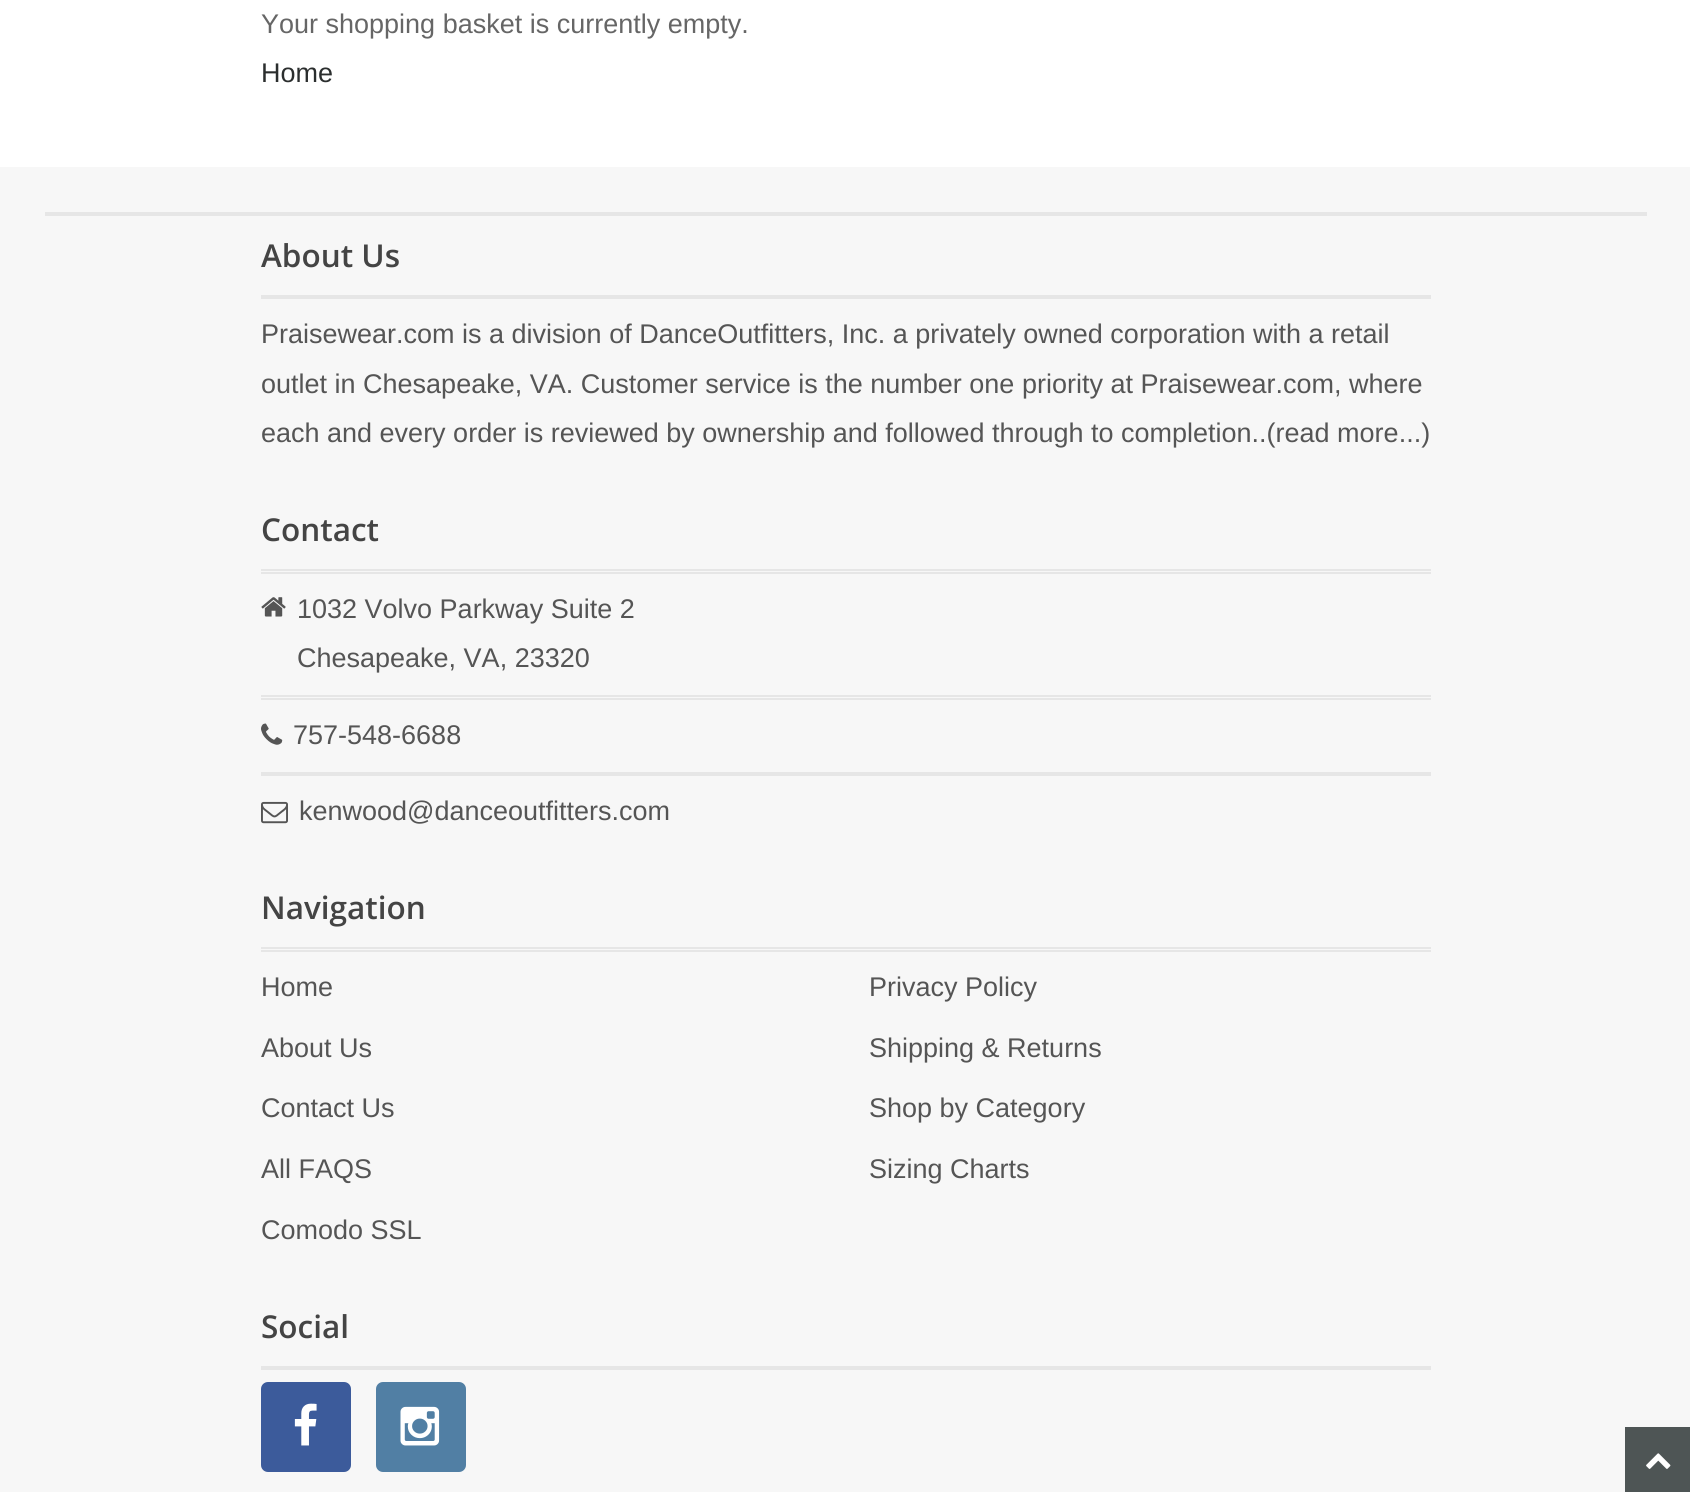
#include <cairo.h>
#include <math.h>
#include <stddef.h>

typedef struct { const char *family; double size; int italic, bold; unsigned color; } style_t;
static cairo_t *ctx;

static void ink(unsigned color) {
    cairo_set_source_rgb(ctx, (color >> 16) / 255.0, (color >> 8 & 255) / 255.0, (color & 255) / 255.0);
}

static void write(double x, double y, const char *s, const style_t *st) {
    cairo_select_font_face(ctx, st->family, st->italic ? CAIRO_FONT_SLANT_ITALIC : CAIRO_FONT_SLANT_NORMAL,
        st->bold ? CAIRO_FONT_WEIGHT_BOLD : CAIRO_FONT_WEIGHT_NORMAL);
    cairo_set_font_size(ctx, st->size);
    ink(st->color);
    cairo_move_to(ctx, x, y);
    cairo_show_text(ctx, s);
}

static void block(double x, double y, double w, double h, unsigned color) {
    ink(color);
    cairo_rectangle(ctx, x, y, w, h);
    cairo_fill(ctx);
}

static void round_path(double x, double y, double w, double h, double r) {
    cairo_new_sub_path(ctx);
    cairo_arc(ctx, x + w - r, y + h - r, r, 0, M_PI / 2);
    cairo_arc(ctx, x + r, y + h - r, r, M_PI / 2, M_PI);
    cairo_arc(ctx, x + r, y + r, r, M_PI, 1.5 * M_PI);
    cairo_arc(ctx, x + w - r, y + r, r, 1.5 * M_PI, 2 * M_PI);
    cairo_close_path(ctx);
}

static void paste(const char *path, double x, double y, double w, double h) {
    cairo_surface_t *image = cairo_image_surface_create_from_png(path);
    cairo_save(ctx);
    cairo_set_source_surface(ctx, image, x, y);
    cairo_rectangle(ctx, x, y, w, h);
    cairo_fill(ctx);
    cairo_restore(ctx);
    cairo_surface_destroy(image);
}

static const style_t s1 = {"Liberation Sans", 27, 0, 0, 0x666666};
static const style_t s2 = {"Liberation Sans", 27, 0, 0, 0x2b2e2e};
static const style_t s3 = {"Open Sans SemiBold", 31.5, 0, 0, 0x444444};
static const style_t s4 = {"Liberation Sans", 27, 0, 0, 0x555555};

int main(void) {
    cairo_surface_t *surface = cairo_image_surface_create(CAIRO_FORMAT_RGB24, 1690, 1492);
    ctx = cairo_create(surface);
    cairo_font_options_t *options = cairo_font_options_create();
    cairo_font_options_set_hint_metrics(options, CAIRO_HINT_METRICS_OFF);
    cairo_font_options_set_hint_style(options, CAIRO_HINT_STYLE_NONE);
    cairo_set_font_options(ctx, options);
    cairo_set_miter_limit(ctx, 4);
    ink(0xffffff);
    cairo_paint(ctx);
    write(261, 33, "Your shopping basket is currently empty.", &s1);
    write(261, 82, "Home", &s2);
    block(0, 167, 1690, 1325, 0xf7f7f7);
    block(45, 212, 1602, 4, 0xe6e6e6);
    write(261, 267, "About Us", &s3);
    block(261, 295, 1170, 4, 0xe6e6e6);
    write(261, 343, "Praisewear.com is a division of DanceOutfitters, Inc. a privately owned corporation with a retail", &s4);
    write(261, 393, "outlet in Chesapeake, VA. Customer service is the number one priority at Praisewear.com, where", &s4);
    write(261, 442, "each and every order is reviewed by ownership and followed through to completion..(read more...)", &s4);
    write(261, 541, "Contact", &s3);
    block(261, 569, 1170, 2, 0xe6e6e6);
    block(261, 572, 1170, 2, 0xe6e6e6);
    paste("pic1.png", 261, 597, 25, 20);
    write(297, 618, "1032 Volvo Parkway Suite 2", &s4);
    write(297, 667, "Chesapeake, VA, 23320", &s4);
    block(261, 695, 1170, 2, 0xe6e6e6);
    block(261, 698, 1170, 2, 0xe6e6e6);
    paste("pic2.png", 261, 723, 22, 22);
    write(293, 744, "757-548-6688", &s4);
    block(261, 772, 1170, 4, 0xe6e6e6);
    paste("pic3.png", 261, 801, 27, 23);
    write(299, 820, "kenwood@danceoutfitters.com", &s4);
    write(261, 919, "Navigation", &s3);
    block(261, 947, 1170, 2, 0xe6e6e6);
    block(261, 950, 1170, 2, 0xe6e6e6);
    write(261, 996, "Home", &s4);
    write(261, 1057, "About Us", &s4);
    write(261, 1117, "Contact Us", &s4);
    write(261, 1178, "All FAQS", &s4);
    write(261, 1239, "Comodo SSL", &s4);
    write(869, 996, "Privacy Policy", &s4);
    write(869, 1057, "Shipping & Returns", &s4);
    write(869, 1117, "Shop by Category", &s4);
    write(869, 1178, "Sizing Charts", &s4);
    write(261, 1338, "Social", &s3);
    block(261, 1366, 1170, 4, 0xe6e6e6);
    ink(0x3c5b9b);
    round_path(261, 1382, 90, 90, 7);
    cairo_fill(ctx);
    paste("pic4.png", 294, 1403, 23, 43);
    ink(0x517fa4);
    round_path(376, 1382, 90, 90, 7);
    cairo_fill(ctx);
    paste("pic5.png", 400, 1406, 40, 40);
    block(1625, 1427, 65, 65, 0x4e5555);
    paste("pic6.png", 1646, 1453, 25, 16);
    cairo_surface_write_to_png(surface, "screenshot.png");
    cairo_font_options_destroy(options);
    cairo_destroy(ctx);
    cairo_surface_destroy(surface);
    return 0;
}
